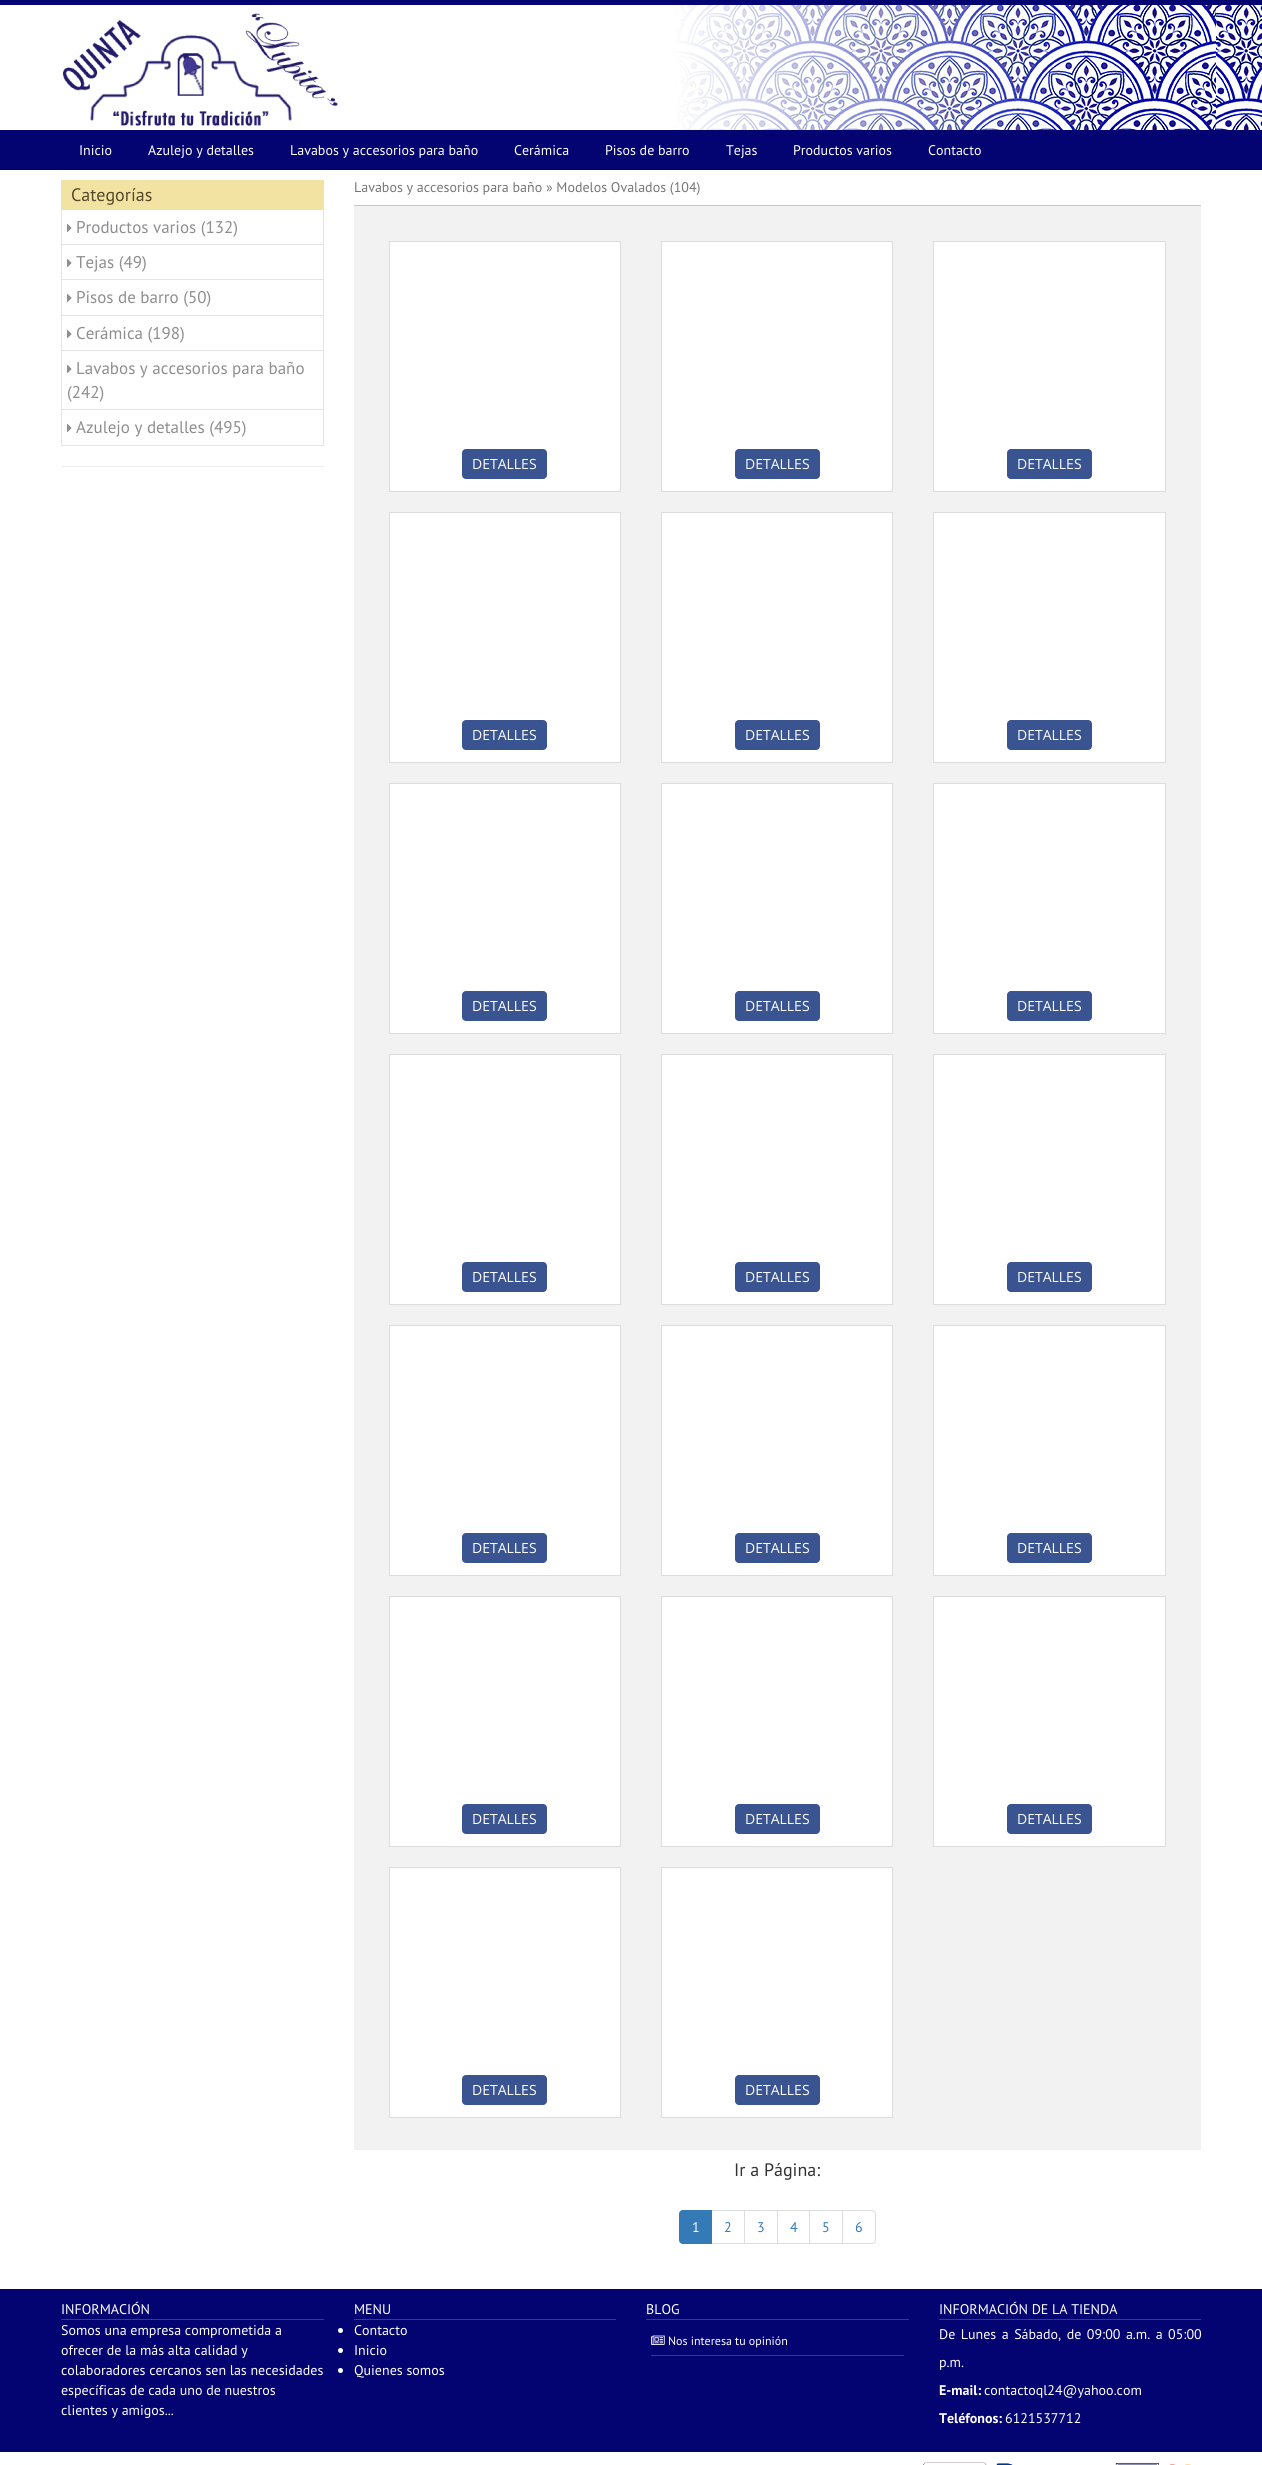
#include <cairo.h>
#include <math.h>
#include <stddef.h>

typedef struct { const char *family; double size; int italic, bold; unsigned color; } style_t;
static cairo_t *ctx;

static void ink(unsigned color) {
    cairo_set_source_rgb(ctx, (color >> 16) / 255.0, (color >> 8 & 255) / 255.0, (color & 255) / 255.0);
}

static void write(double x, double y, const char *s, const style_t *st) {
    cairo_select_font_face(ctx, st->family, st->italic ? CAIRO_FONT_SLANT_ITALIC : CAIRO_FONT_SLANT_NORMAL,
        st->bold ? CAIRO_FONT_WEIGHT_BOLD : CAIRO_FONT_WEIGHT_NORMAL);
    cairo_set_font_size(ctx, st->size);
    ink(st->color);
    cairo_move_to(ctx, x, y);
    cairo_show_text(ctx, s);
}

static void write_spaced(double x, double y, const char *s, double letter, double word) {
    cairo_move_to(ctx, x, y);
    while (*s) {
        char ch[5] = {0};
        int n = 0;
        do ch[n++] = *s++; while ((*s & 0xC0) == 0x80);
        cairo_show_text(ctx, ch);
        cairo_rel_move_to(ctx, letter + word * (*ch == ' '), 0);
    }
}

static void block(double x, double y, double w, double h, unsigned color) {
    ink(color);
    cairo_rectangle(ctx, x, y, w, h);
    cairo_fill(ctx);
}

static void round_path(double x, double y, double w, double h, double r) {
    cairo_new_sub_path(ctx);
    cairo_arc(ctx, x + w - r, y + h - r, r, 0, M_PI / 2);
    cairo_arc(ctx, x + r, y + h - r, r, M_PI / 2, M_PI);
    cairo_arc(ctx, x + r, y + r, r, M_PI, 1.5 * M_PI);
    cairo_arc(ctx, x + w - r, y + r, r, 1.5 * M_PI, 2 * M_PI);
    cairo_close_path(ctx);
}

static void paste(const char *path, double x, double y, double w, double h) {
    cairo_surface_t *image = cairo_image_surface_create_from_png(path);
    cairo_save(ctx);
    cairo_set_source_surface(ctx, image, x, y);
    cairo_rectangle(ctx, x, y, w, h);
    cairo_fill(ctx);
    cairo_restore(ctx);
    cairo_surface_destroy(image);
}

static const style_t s1 = {"PT Sans", 14, 0, 0, 0xffffff};
static const style_t s2 = {"PT Sans", 18, 0, 0, 0x54482a};
static const style_t s3 = {"PT Sans", 17, 0, 0, 0x8e8e8e};
static const style_t s4 = {"PT Sans", 14, 0, 0, 0x777777};
static const style_t s5 = {"Open Sans", 14, 0, 0, 0xffffff};
static const style_t s6 = {"PT Sans", 18, 0, 0, 0x333333};
static const style_t s7 = {"PT Sans", 14, 0, 0, 0x337ab7};
static const style_t s8 = {"PT Sans", 12, 0, 0, 0xffffff};
static const style_t s9 = {"PT Sans", 14, 0, 1, 0xffffff};

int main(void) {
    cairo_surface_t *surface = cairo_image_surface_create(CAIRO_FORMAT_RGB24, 1262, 2465);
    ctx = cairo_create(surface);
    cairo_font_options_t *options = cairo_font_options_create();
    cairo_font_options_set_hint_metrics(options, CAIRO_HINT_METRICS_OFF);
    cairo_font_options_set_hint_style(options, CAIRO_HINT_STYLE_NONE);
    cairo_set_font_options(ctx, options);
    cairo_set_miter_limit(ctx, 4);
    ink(0xffffff);
    cairo_paint(ctx);
    block(0, 0, 1262, 5, 0x030372);
    paste("pic1.png", 1216, 5, 46, 125);
    paste("pic2.png", 633, 5, 583, 125);
    paste("pic3.png", 63, 13, 275, 113);
    block(0, 130, 1262, 40, 0x030372);
    write(79, 155, "Inicio", &s1);
    write(148, 155, "Azulejo y detalles", &s1);
    write(290, 155, "Lavabos y accesorios para baño", &s1);
    write(514, 155, "Cerámica", &s1);
    write(605, 155, "Pisos de barro", &s1);
    write(726, 155, "Tejas", &s1);
    write(793, 155, "Productos varios", &s1);
    write(928, 155, "Contacto", &s1);
    block(61, 180, 263, 30, 0xf3e3a2);
    write(71, 201, "Categorías", &s2);
    block(323, 210, 1, 236, 0xe4e4e4);
    block(61, 244, 263, 1, 0xe4e4e4);
    block(61, 210, 1, 35, 0xe4e4e4);
    paste("pic4.png", 67, 224, 5, 8);
    write(76, 233, "Productos varios (132)", &s3);
    block(61, 279, 263, 1, 0xe4e4e4);
    block(61, 245, 1, 35, 0xe4e4e4);
    paste("pic4.png", 67, 259, 5, 8);
    write(76, 268, "Tejas (49)", &s3);
    block(61, 315, 263, 1, 0xe4e4e4);
    block(61, 280, 1, 36, 0xe4e4e4);
    paste("pic4.png", 67, 294, 5, 8);
    write(76, 303, "Pisos de barro (50)", &s3);
    block(61, 350, 263, 1, 0xe4e4e4);
    block(61, 316, 1, 35, 0xe4e4e4);
    paste("pic4.png", 67, 330, 5, 8);
    write(76, 339, "Cerámica (198)", &s3);
    block(61, 409, 263, 1, 0xe4e4e4);
    block(61, 351, 1, 59, 0xe4e4e4);
    paste("pic4.png", 67, 365, 5, 8);
    write(76, 374, "Lavabos y accesorios para baño", &s3);
    write(67, 398, "(242)", &s3);
    block(61, 445, 263, 1, 0xe4e4e4);
    block(61, 410, 1, 36, 0xe4e4e4);
    paste("pic4.png", 67, 424, 5, 8);
    write(76, 433, "Azulejo y detalles (495)", &s3);
    block(61, 466, 263, 1, 0xeeeeee);
    write(354, 192, "Lavabos y accesorios para baño » Modelos Ovalados (104)", &s4);
    block(354, 205, 847, 1, 0xc5c5c5);
    block(354, 206, 847, 1944, 0xf2f2f2);
    ink(0xffffff);
    cairo_rectangle(ctx, 389.5, 241.5, 231, 250);
    cairo_fill_preserve(ctx);
    ink(0xdddddd);
    cairo_set_line_width(ctx, 1);
    cairo_stroke(ctx);
    ink(0x395491);
    round_path(462, 449, 85, 30, 4);
    cairo_fill(ctx);
    write(472, 469, "DETALLES", &s5);
    cairo_rectangle(ctx, 661.5, 241.5, 231, 250);
    cairo_fill_preserve(ctx);
    ink(0xdddddd);
    cairo_stroke(ctx);
    ink(0x395491);
    round_path(735, 449, 85, 30, 4);
    cairo_fill(ctx);
    write(745, 469, "DETALLES", &s5);
    cairo_rectangle(ctx, 933.5, 241.5, 232, 250);
    cairo_fill_preserve(ctx);
    ink(0xdddddd);
    cairo_stroke(ctx);
    ink(0x395491);
    round_path(1007, 449, 85, 30, 4);
    cairo_fill(ctx);
    write(1017, 469, "DETALLES", &s5);
    cairo_rectangle(ctx, 389.5, 512.5, 231, 250);
    cairo_fill_preserve(ctx);
    ink(0xdddddd);
    cairo_stroke(ctx);
    ink(0x395491);
    round_path(462, 720, 85, 30, 4);
    cairo_fill(ctx);
    write(472, 740, "DETALLES", &s5);
    cairo_rectangle(ctx, 661.5, 512.5, 231, 250);
    cairo_fill_preserve(ctx);
    ink(0xdddddd);
    cairo_stroke(ctx);
    ink(0x395491);
    round_path(735, 720, 85, 30, 4);
    cairo_fill(ctx);
    write(745, 740, "DETALLES", &s5);
    cairo_rectangle(ctx, 933.5, 512.5, 232, 250);
    cairo_fill_preserve(ctx);
    ink(0xdddddd);
    cairo_stroke(ctx);
    ink(0x395491);
    round_path(1007, 720, 85, 30, 4);
    cairo_fill(ctx);
    write(1017, 740, "DETALLES", &s5);
    cairo_rectangle(ctx, 389.5, 783.5, 231, 250);
    cairo_fill_preserve(ctx);
    ink(0xdddddd);
    cairo_stroke(ctx);
    ink(0x395491);
    round_path(462, 991, 85, 30, 4);
    cairo_fill(ctx);
    write(472, 1011, "DETALLES", &s5);
    cairo_rectangle(ctx, 661.5, 783.5, 231, 250);
    cairo_fill_preserve(ctx);
    ink(0xdddddd);
    cairo_stroke(ctx);
    ink(0x395491);
    round_path(735, 991, 85, 30, 4);
    cairo_fill(ctx);
    write(745, 1011, "DETALLES", &s5);
    cairo_rectangle(ctx, 933.5, 783.5, 232, 250);
    cairo_fill_preserve(ctx);
    ink(0xdddddd);
    cairo_stroke(ctx);
    ink(0x395491);
    round_path(1007, 991, 85, 30, 4);
    cairo_fill(ctx);
    write(1017, 1011, "DETALLES", &s5);
    cairo_rectangle(ctx, 389.5, 1054.5, 231, 250);
    cairo_fill_preserve(ctx);
    ink(0xdddddd);
    cairo_stroke(ctx);
    ink(0x395491);
    round_path(462, 1262, 85, 30, 4);
    cairo_fill(ctx);
    write(472, 1282, "DETALLES", &s5);
    cairo_rectangle(ctx, 661.5, 1054.5, 231, 250);
    cairo_fill_preserve(ctx);
    ink(0xdddddd);
    cairo_stroke(ctx);
    ink(0x395491);
    round_path(735, 1262, 85, 30, 4);
    cairo_fill(ctx);
    write(745, 1282, "DETALLES", &s5);
    cairo_rectangle(ctx, 933.5, 1054.5, 232, 250);
    cairo_fill_preserve(ctx);
    ink(0xdddddd);
    cairo_stroke(ctx);
    ink(0x395491);
    round_path(1007, 1262, 85, 30, 4);
    cairo_fill(ctx);
    write(1017, 1282, "DETALLES", &s5);
    cairo_rectangle(ctx, 389.5, 1325.5, 231, 250);
    cairo_fill_preserve(ctx);
    ink(0xdddddd);
    cairo_stroke(ctx);
    ink(0x395491);
    round_path(462, 1533, 85, 30, 4);
    cairo_fill(ctx);
    write(472, 1553, "DETALLES", &s5);
    cairo_rectangle(ctx, 661.5, 1325.5, 231, 250);
    cairo_fill_preserve(ctx);
    ink(0xdddddd);
    cairo_stroke(ctx);
    ink(0x395491);
    round_path(735, 1533, 85, 30, 4);
    cairo_fill(ctx);
    write(745, 1553, "DETALLES", &s5);
    cairo_rectangle(ctx, 933.5, 1325.5, 232, 250);
    cairo_fill_preserve(ctx);
    ink(0xdddddd);
    cairo_stroke(ctx);
    ink(0x395491);
    round_path(1007, 1533, 85, 30, 4);
    cairo_fill(ctx);
    write(1017, 1553, "DETALLES", &s5);
    cairo_rectangle(ctx, 389.5, 1596.5, 231, 250);
    cairo_fill_preserve(ctx);
    ink(0xdddddd);
    cairo_stroke(ctx);
    ink(0x395491);
    round_path(462, 1804, 85, 30, 4);
    cairo_fill(ctx);
    write(472, 1824, "DETALLES", &s5);
    cairo_rectangle(ctx, 661.5, 1596.5, 231, 250);
    cairo_fill_preserve(ctx);
    ink(0xdddddd);
    cairo_stroke(ctx);
    ink(0x395491);
    round_path(735, 1804, 85, 30, 4);
    cairo_fill(ctx);
    write(745, 1824, "DETALLES", &s5);
    cairo_rectangle(ctx, 933.5, 1596.5, 232, 250);
    cairo_fill_preserve(ctx);
    ink(0xdddddd);
    cairo_stroke(ctx);
    ink(0x395491);
    round_path(1007, 1804, 85, 30, 4);
    cairo_fill(ctx);
    write(1017, 1824, "DETALLES", &s5);
    cairo_rectangle(ctx, 389.5, 1867.5, 231, 250);
    cairo_fill_preserve(ctx);
    ink(0xdddddd);
    cairo_stroke(ctx);
    ink(0x395491);
    round_path(462, 2075, 85, 30, 4);
    cairo_fill(ctx);
    write(472, 2095, "DETALLES", &s5);
    cairo_rectangle(ctx, 661.5, 1867.5, 231, 250);
    cairo_fill_preserve(ctx);
    ink(0xdddddd);
    cairo_stroke(ctx);
    ink(0x395491);
    round_path(735, 2075, 85, 30, 4);
    cairo_fill(ctx);
    write(745, 2095, "DETALLES", &s5);
    write(734, 2176, "Ir a Página:", &s6);
    cairo_rectangle(ctx, 711.5, 2210.5, 33, 33);
    ink(0xdddddd);
    cairo_stroke(ctx);
    ink(0x337ab7);
    cairo_new_path(ctx);
    cairo_move_to(ctx, 683, 2210.5);
    cairo_line_to(ctx, 711.5, 2210.5);
    cairo_line_to(ctx, 711.5, 2243.5);
    cairo_line_to(ctx, 683, 2243.5);
    cairo_curve_to(ctx, 681, 2243.5, 679.5, 2242, 679.5, 2240);
    cairo_line_to(ctx, 679.5, 2214);
    cairo_curve_to(ctx, 679.5, 2212, 681, 2210.5, 683, 2210.5);
    cairo_close_path(ctx);
    cairo_fill_preserve(ctx);
    cairo_stroke(ctx);
    write(692, 2232, "1", &s1);
    write(724, 2232, "2", &s7);
    cairo_rectangle(ctx, 744.5, 2210.5, 33, 33);
    ink(0xdddddd);
    cairo_stroke(ctx);
    write(757, 2232, "3", &s7);
    cairo_rectangle(ctx, 777.5, 2210.5, 32, 33);
    ink(0xdddddd);
    cairo_stroke(ctx);
    write(790, 2232, "4", &s7);
    cairo_rectangle(ctx, 809.5, 2210.5, 33, 33);
    ink(0xdddddd);
    cairo_stroke(ctx);
    write(822, 2232, "5", &s7);
    ink(0xffffff);
    cairo_new_path(ctx);
    cairo_move_to(ctx, 842.5, 2210.5);
    cairo_line_to(ctx, 872, 2210.5);
    cairo_curve_to(ctx, 874, 2210.5, 875.5, 2212, 875.5, 2214);
    cairo_line_to(ctx, 875.5, 2240);
    cairo_curve_to(ctx, 875.5, 2242, 874, 2243.5, 872, 2243.5);
    cairo_line_to(ctx, 842.5, 2243.5);
    cairo_close_path(ctx);
    cairo_fill_preserve(ctx);
    ink(0xdddddd);
    cairo_stroke(ctx);
    write(855, 2232, "6", &s7);
    block(0, 2289, 1262, 163, 0x030372);
    block(61, 2319, 263, 1, 0x434343);
    write(61, 2314, "INFORMACIÓN", &s1);
    write(61, 2335, "Somos una empresa comprometida a", &s1);
    write(61, 2355, "ofrecer de la más alta calidad y", &s1);
    write(61, 2375, "colaboradores cercanos sen las necesidades", &s1);
    write(61, 2395, "específicas de cada uno de nuestros", &s1);
    write(61, 2415, "clientes y amigos...", &s1);
    block(354, 2319, 262, 1, 0x434343);
    write(354, 2314, "MENU", &s1);
    cairo_new_path(ctx);
    cairo_arc(ctx, 340.5, 2330.5, 2.5, 0, 2 * M_PI);
    cairo_fill(ctx);
    write(354, 2335, "Contacto", &s1);
    cairo_new_path(ctx);
    cairo_arc(ctx, 340.5, 2350.5, 2.5, 0, 2 * M_PI);
    cairo_fill(ctx);
    write(354, 2355, "Inicio", &s1);
    cairo_new_path(ctx);
    cairo_arc(ctx, 340.5, 2370.5, 2.5, 0, 2 * M_PI);
    cairo_fill(ctx);
    write(354, 2375, "Quienes somos", &s1);
    block(646, 2319, 263, 1, 0x434343);
    write(646, 2314, "BLOG", &s1);
    block(651, 2355, 253, 1, 0x414141);
    paste("pic5.png", 651, 2335, 14, 10);
    write(668, 2345, "Nos interesa tu opinión", &s8);
    block(939, 2319, 262, 1, 0x434343);
    write(939, 2314, "INFORMACIÓN DE LA TIENDA", &s1);
    write_spaced(939, 2339, "De Lunes a Sábado, de 09:00 a.m. a 05:00", 0, 1.75);
    write(939, 2367, "p.m.", &s1);
    write(939, 2395, "E-mail:", &s9);
    write(984, 2395, "contactoql24@yahoo.com", &s1);
    write(939, 2423, "Teléfonos:", &s9);
    write(1005, 2423, "6121537712", &s1);
    paste("pic6.png", 923, 2462, 64, 3);
    paste("pic7.png", 996, 2463, 17, 2);
    paste("pic8.png", 1115, 2462, 76, 3);
    cairo_surface_write_to_png(surface, "screenshot.png");
    cairo_font_options_destroy(options);
    cairo_destroy(ctx);
    cairo_surface_destroy(surface);
    return 0;
}
